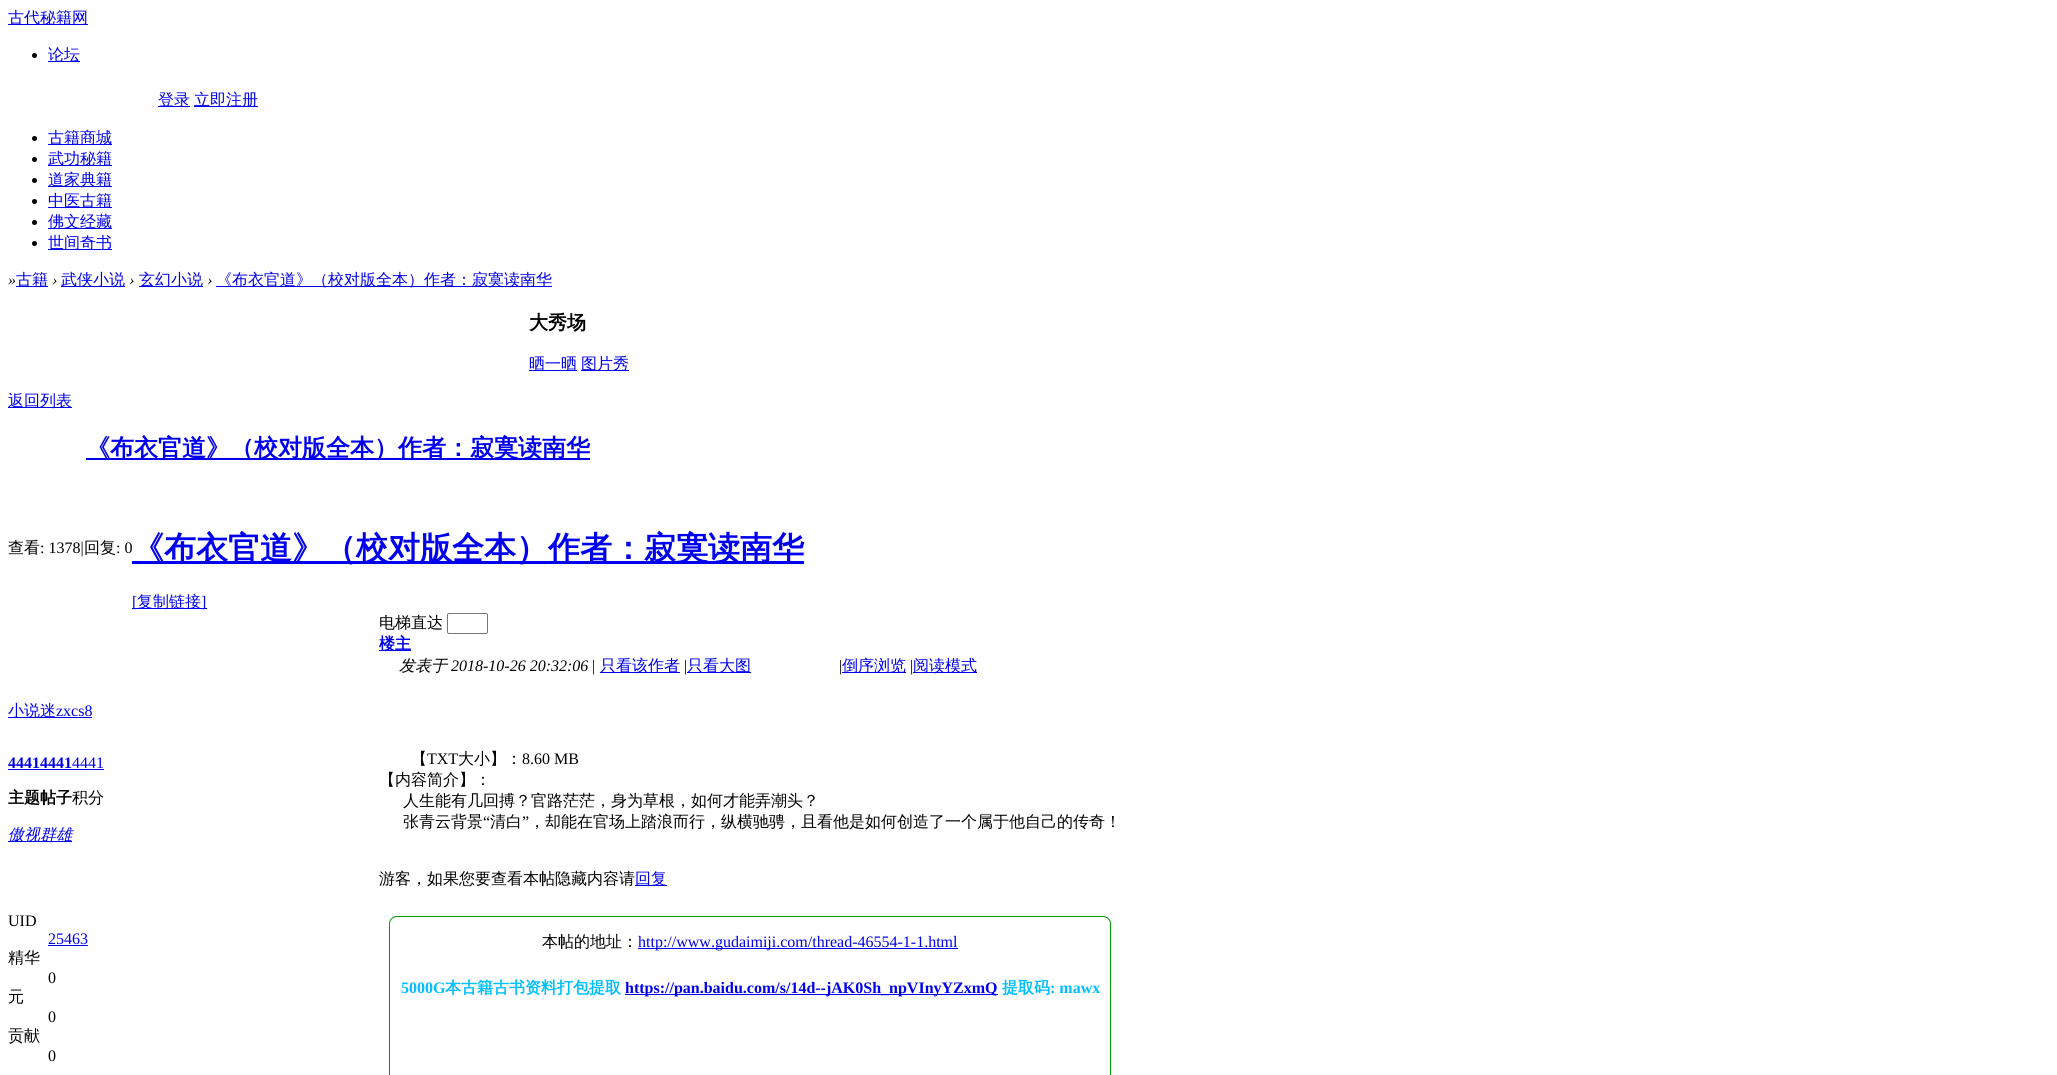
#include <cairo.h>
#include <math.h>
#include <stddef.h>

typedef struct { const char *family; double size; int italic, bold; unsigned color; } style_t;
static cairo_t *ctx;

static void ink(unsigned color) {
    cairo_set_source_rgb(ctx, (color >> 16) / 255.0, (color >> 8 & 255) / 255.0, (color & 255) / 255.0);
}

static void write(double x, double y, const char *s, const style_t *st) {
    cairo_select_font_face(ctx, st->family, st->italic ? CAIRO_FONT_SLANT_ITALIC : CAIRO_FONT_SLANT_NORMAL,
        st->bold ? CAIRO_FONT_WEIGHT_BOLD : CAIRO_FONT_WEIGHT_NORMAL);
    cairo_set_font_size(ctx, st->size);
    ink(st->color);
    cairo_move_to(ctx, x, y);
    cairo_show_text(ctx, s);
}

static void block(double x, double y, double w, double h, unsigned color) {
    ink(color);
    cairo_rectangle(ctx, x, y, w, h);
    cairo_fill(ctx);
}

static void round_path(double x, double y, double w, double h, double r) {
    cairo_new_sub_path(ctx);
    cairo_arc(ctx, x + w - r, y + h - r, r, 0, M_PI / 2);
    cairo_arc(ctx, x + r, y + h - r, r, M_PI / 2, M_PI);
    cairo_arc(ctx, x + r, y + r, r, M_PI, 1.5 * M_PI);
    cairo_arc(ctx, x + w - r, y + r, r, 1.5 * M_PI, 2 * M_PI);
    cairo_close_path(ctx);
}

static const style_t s1 = {"WenQuanYi Zen Hei Medium", 16, 0, 0, 0x0000ee};
static const style_t s2 = {"Liberation Serif", 16, 1, 0, 0x000000};
static const style_t s3 = {"WenQuanYi Zen Hei", 19, 0, 1, 0x000000};
static const style_t s4 = {"WenQuanYi Zen Hei", 24, 0, 1, 0x0000ee};
static const style_t s5 = {"WenQuanYi Zen Hei Medium", 16, 0, 0, 0x000000};
static const style_t s6 = {"Liberation Serif", 16, 0, 0, 0x000000};
static const style_t s7 = {"WenQuanYi Zen Hei", 32, 0, 1, 0x0000ee};
static const style_t s8 = {"Liberation Serif", 16, 0, 0, 0x0000ee};
static const style_t s9 = {"Liberation Serif", 16, 0, 1, 0x0000ee};
static const style_t s10 = {"WenQuanYi Zen Hei", 16, 0, 1, 0x000000};
static const style_t s11 = {"WenQuanYi Zen Hei Medium", 16, 1, 0, 0x0000ee};
static const style_t s12 = {"WenQuanYi Zen Hei", 16, 0, 1, 0x0000ee};
static const style_t s13 = {"WenQuanYi Zen Hei Medium", 16, 1, 0, 0x000000};
static const style_t s14 = {"Liberation Serif", 16, 0, 1, 0x00bfff};
static const style_t s15 = {"WenQuanYi Zen Hei", 16, 0, 1, 0x00bfff};

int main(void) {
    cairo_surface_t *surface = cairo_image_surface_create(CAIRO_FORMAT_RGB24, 2057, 1075);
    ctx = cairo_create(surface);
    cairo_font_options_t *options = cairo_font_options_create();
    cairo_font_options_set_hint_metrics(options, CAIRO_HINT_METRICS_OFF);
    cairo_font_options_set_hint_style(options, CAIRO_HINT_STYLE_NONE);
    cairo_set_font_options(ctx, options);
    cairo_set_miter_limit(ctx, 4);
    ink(0xffffff);
    cairo_paint(ctx);
    block(8, 24, 80, 1, 0x0000ee);
    write(8, 23, "古代秘籍网", &s1);
    ink(0x000000);
    cairo_new_path(ctx);
    cairo_arc(ctx, 34.5, 55.5, 2.5, 0, 2 * M_PI);
    cairo_fill(ctx);
    block(48, 61, 32, 1, 0x0000ee);
    write(48, 60, "论坛", &s1);
    block(158, 106, 32, 1, 0x0000ee);
    write(158, 105, "登录", &s1);
    block(194, 106, 64, 1, 0x0000ee);
    write(194, 105, "立即注册", &s1);
    ink(0x000000);
    cairo_new_path(ctx);
    cairo_arc(ctx, 34.5, 138.5, 2.5, 0, 2 * M_PI);
    cairo_fill(ctx);
    block(48, 144, 64, 1, 0x0000ee);
    write(48, 143, "古籍商城", &s1);
    ink(0x000000);
    cairo_new_path(ctx);
    cairo_arc(ctx, 34.5, 159.5, 2.5, 0, 2 * M_PI);
    cairo_fill(ctx);
    block(48, 165, 64, 1, 0x0000ee);
    write(48, 164, "武功秘籍", &s1);
    ink(0x000000);
    cairo_new_path(ctx);
    cairo_arc(ctx, 34.5, 180.5, 2.5, 0, 2 * M_PI);
    cairo_fill(ctx);
    block(48, 186, 64, 1, 0x0000ee);
    write(48, 185, "道家典籍", &s1);
    ink(0x000000);
    cairo_new_path(ctx);
    cairo_arc(ctx, 34.5, 201.5, 2.5, 0, 2 * M_PI);
    cairo_fill(ctx);
    block(48, 207, 64, 1, 0x0000ee);
    write(48, 206, "中医古籍", &s1);
    ink(0x000000);
    cairo_new_path(ctx);
    cairo_arc(ctx, 34.5, 222.5, 2.5, 0, 2 * M_PI);
    cairo_fill(ctx);
    block(48, 228, 64, 1, 0x0000ee);
    write(48, 227, "佛文经藏", &s1);
    ink(0x000000);
    cairo_new_path(ctx);
    cairo_arc(ctx, 34.5, 243.5, 2.5, 0, 2 * M_PI);
    cairo_fill(ctx);
    block(48, 249, 64, 1, 0x0000ee);
    write(48, 248, "世间奇书", &s1);
    write(8, 285, "»", &s2);
    block(16, 286, 32, 1, 0x0000ee);
    write(16, 285, "古籍", &s1);
    write(52, 285, "›", &s2);
    block(61, 286, 64, 1, 0x0000ee);
    write(61, 285, "武侠小说", &s1);
    write(129, 285, "›", &s2);
    block(139, 286, 64, 1, 0x0000ee);
    write(139, 285, "玄幻小说", &s1);
    write(207, 285, "›", &s2);
    block(216, 286, 336, 1, 0x0000ee);
    write(216, 285, "《布衣官道》（校对版全本）作者：寂寞读南华", &s1);
    write(529, 329, "大秀场", &s3);
    block(529, 370, 48, 1, 0x0000ee);
    write(529, 369, "晒一晒", &s1);
    block(581, 370, 48, 1, 0x0000ee);
    write(581, 369, "图片秀", &s1);
    block(8, 407, 64, 1, 0x0000ee);
    write(8, 406, "返回列表", &s1);
    block(86, 458, 504, 2, 0x0000ee);
    write(86, 456, "《布衣官道》（校对版全本）作者：寂寞读南华", &s4);
    write(8, 553, "查看", &s5);
    write(40, 553, ": 1378|", &s6);
    write(84, 553, "回复", &s5);
    write(116, 553, ": 0", &s6);
    block(132, 561, 672, 3, 0x0000ee);
    write(132, 559, "《布衣官道》（校对版全本）作者：寂寞读南华", &s7);
    block(132, 608, 75, 1, 0x0000ee);
    write(132, 607, "[", &s8);
    write(137, 607, "复制链接", &s1);
    write(201, 607, "]", &s8);
    block(8, 717, 84, 1, 0x0000ee);
    write(8, 716, "小说迷", &s1);
    write(56, 716, "zxcs8", &s8);
    write(8, 768, "44414441", &s9);
    block(8, 769, 96, 1, 0x0000ee);
    write(8, 803, "主题帖子", &s10);
    write(72, 768, "4441", &s8);
    write(72, 803, "积分", &s5);
    block(8, 841, 64, 1, 0x0000ee);
    write(8, 840, "傲视群雄", &s11);
    write(8, 926, "UID", &s6);
    write(48, 944, "25463", &s8);
    block(48, 945, 40, 1, 0x0000ee);
    write(8, 963, "精华", &s5);
    write(48, 983, "0", &s6);
    write(8, 1002, "元", &s5);
    write(48, 1022, "0", &s6);
    write(8, 1041, "贡献", &s5);
    write(48, 1061, "0", &s6);
    write(379, 628, "电梯直达", &s5);
    round_path(447.5, 613.5, 40, 20, 1.5);
    ink(0x767676);
    cairo_set_line_width(ctx, 1);
    cairo_stroke(ctx);
    block(379, 650, 32, 1, 0x0000ee);
    write(379, 649, "楼主", &s12);
    write(399, 671, "发表于", &s13);
    write(451, 671, "2018-10-26 20:32:06", &s2);
    write(592, 671, "|", &s6);
    block(600, 672, 80, 1, 0x0000ee);
    write(600, 671, "只看该作者", &s1);
    write(684, 671, "|", &s6);
    block(687, 672, 64, 1, 0x0000ee);
    write(687, 671, "只看大图", &s1);
    write(839, 671, "|", &s6);
    block(842, 672, 64, 1, 0x0000ee);
    write(842, 671, "倒序浏览", &s1);
    write(910, 671, "|", &s6);
    block(913, 672, 64, 1, 0x0000ee);
    write(913, 671, "阅读模式", &s1);
    write(411, 764, "【", &s5);
    write(427, 764, "TXT", &s6);
    write(458, 764, "大小】：", &s5);
    write(522, 764, "8.60 MB", &s6);
    write(379, 785, "【内容简介】：", &s5);
    write(403, 806, "人生能有几回搏？官路茫茫，身为草根，如何才能弄潮头？", &s5);
    write(403, 827, "张青云背景", &s5);
    write(483, 827, "“", &s6);
    write(490, 827, "清白", &s5);
    write(522, 827, "”", &s6);
    write(529, 827, "，却能在官场上踏浪而行，纵横驰骋，且看他是如何创造了一个属于他自己的传奇！", &s5);
    write(379, 884, "游客，如果您要查看本帖隐藏内容请", &s5);
    block(635, 885, 32, 1, 0x0000ee);
    write(635, 884, "回复", &s1);
    round_path(389.5, 916.5, 721, 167, 7.5);
    ink(0x009900);
    cairo_stroke(ctx);
    write(542, 947, "本帖的地址：", &s5);
    block(638, 948, 320, 1, 0x0000ee);
    write(638, 947, "http://www.gudaimiji.com/thread-46554-1-1.html", &s8);
    write(401, 993, "5000G", &s14);
    write(445, 993, "本古籍古书资料打包提取", &s15);
    block(625, 994, 373, 1, 0x0000ee);
    write(625, 993, "https://pan.baidu.com/s/14d--jAK0Sh_npVInyYZxmQ", &s9);
    write(1002, 993, "提取码", &s15);
    write(1050, 993, ": mawx", &s14);
    cairo_surface_write_to_png(surface, "screenshot.png");
    cairo_font_options_destroy(options);
    cairo_destroy(ctx);
    cairo_surface_destroy(surface);
    return 0;
}
